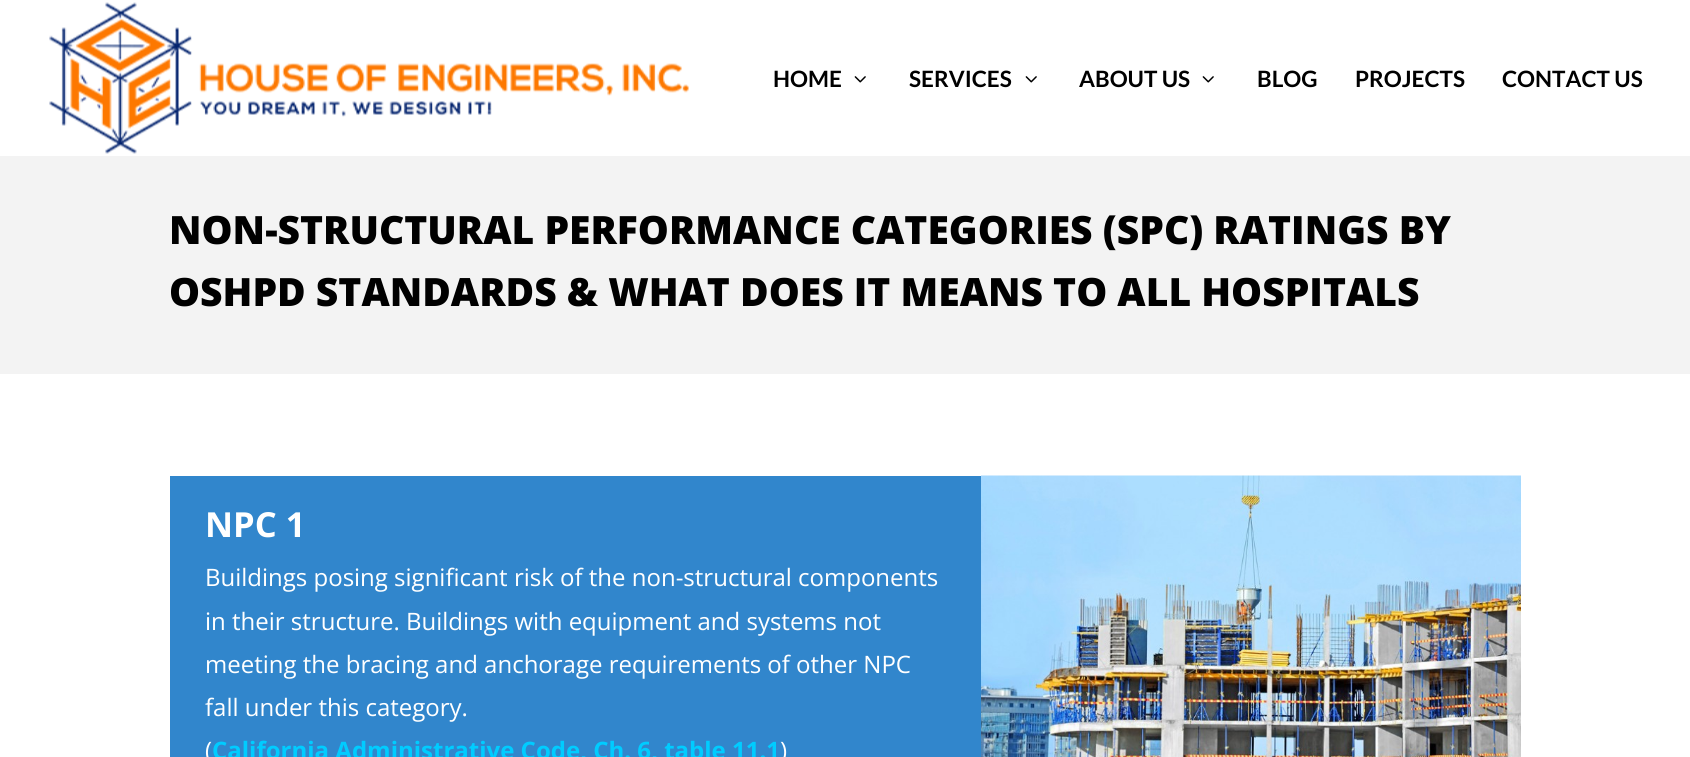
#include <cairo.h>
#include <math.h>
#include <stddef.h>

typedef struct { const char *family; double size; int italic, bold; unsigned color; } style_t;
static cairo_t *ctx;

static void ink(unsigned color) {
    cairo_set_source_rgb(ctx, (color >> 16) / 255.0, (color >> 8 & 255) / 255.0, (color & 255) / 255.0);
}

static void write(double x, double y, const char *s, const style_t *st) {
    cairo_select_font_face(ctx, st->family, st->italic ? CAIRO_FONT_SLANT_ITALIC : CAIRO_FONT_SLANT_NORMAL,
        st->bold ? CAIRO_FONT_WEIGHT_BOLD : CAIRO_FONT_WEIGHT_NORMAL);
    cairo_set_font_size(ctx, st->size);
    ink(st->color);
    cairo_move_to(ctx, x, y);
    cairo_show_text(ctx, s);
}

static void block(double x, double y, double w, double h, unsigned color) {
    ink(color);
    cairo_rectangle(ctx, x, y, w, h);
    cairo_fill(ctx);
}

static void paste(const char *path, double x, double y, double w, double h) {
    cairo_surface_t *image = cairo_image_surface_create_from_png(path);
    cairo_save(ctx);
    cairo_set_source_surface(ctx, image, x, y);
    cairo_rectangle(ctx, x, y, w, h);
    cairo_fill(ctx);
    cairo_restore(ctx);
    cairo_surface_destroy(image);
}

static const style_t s1 = {"Lato", 22.5, 0, 1, 0x000000};
static const style_t s2 = {"Open Sans ExtraBold", 39, 0, 0, 0x000000};
static const style_t s3 = {"Open Sans", 34.5, 0, 1, 0xffffff};
static const style_t s4 = {"Open Sans", 24, 0, 0, 0xffffff};
static const style_t s5 = {"Open Sans", 24, 0, 1, 0x00ccff};

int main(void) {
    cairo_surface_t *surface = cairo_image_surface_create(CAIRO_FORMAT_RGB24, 1690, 757);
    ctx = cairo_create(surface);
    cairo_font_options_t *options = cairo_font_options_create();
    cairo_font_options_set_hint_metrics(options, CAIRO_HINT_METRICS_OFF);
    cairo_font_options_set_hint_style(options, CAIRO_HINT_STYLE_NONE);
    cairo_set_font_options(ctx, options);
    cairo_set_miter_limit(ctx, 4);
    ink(0xffffff);
    cairo_paint(ctx);
    paste("pic1.png", 49, 2, 640, 152);
    write(773, 87, "HOME", &s1);
    paste("pic2.png", 854, 76, 12, 7);
    write(909, 87, "SERVICES", &s1);
    paste("pic2.png", 1025, 76, 12, 7);
    write(1079, 87, "ABOUT US", &s1);
    paste("pic2.png", 1202, 76, 12, 7);
    write(1257, 87, "BLOG", &s1);
    write(1355, 87, "PROJECTS", &s1);
    write(1502, 87, "CONTACT US", &s1);
    block(0, 156, 1690, 218, 0xf3f3f3);
    write(169, 244, "NON-STRUCTURAL PERFORMANCE CATEGORIES (SPC) RATINGS BY", &s2);
    write(169, 306, "OSHPD STANDARDS & WHAT DOES IT MEANS TO ALL HOSPITALS", &s2);
    block(170, 476, 811, 281, 0x3186cc);
    write(205, 537, "NPC 1", &s3);
    write(205, 586, "Buildings posing significant risk of the non-structural components", &s4);
    write(205, 630, "in their structure. Buildings with equipment and systems not", &s4);
    write(205, 673, "meeting the bracing and anchorage requirements of other NPC", &s4);
    write(205, 716, "fall under this category.", &s4);
    write(205, 759, "(", &s4);
    write(212, 759, "California Administrative Code, Ch. 6, table 11.1", &s5);
    write(780, 759, ")", &s4);
    paste("pic3.png", 981, 475, 540, 282);
    cairo_surface_write_to_png(surface, "screenshot.png");
    cairo_font_options_destroy(options);
    cairo_destroy(ctx);
    cairo_surface_destroy(surface);
    return 0;
}
